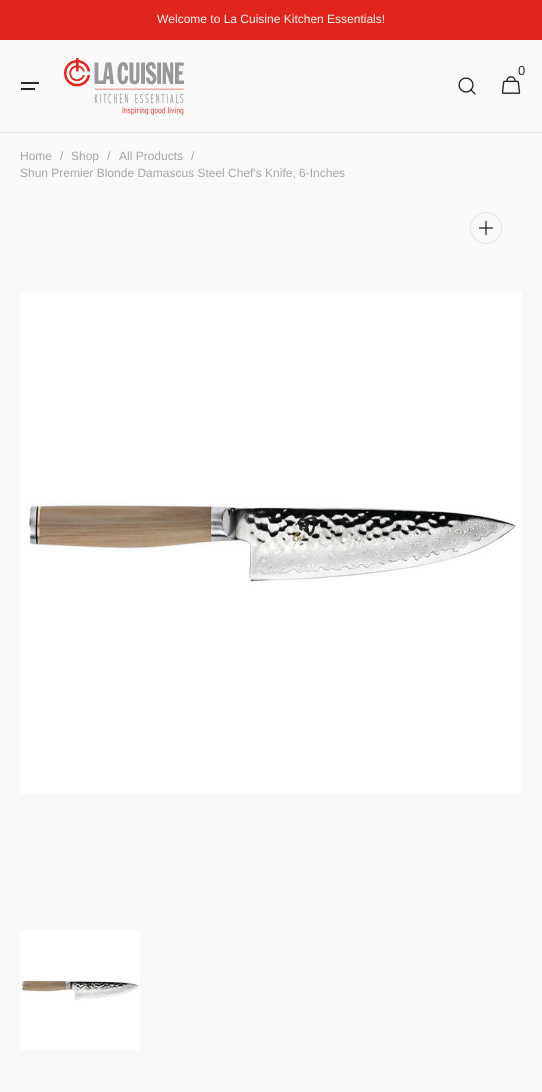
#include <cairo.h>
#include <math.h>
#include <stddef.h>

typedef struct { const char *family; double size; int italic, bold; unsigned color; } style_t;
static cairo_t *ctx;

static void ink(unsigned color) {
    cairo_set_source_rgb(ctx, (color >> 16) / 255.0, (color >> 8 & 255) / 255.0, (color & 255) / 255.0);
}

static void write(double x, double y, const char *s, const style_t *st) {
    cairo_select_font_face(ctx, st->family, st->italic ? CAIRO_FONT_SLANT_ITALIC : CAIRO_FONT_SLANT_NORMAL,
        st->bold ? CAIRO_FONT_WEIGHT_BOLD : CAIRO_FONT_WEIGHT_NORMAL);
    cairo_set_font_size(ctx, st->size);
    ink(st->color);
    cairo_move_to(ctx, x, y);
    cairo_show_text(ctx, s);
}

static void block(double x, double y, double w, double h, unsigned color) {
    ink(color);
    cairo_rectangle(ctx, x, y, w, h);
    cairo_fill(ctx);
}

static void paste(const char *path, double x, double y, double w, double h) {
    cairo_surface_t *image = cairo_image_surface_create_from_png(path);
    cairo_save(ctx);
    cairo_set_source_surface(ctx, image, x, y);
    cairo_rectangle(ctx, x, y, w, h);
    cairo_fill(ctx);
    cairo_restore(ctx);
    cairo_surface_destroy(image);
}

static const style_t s1 = {"Liberation Sans", 12, 0, 0, 0xf9f9f9};
static const style_t s2 = {"Liberation Sans", 13, 0, 0, 0x282828};
static const style_t s3 = {"Liberation Sans", 12, 0, 0, 0xa5a5a5};

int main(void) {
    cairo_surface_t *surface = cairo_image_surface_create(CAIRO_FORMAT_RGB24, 542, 1092);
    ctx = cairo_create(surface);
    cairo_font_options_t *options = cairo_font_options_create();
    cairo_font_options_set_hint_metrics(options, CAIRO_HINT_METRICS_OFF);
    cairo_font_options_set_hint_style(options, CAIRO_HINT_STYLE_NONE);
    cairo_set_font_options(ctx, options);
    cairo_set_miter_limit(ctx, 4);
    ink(0xf9f9f9);
    cairo_paint(ctx);
    block(0, 0, 542, 40, 0xe1251b);
    write(157, 23, "Welcome to La Cuisine Kitchen Essentials!", &s1);
    paste("pic1.png", 64, 58, 120, 57);
    write(518, 75, "0", &s2);
    paste("pic2.png", 501, 76, 20, 18);
    paste("pic3.png", 458, 77, 18, 18);
    block(21, 82, 18, 2, 0x282828);
    block(21, 88, 14, 2, 0x282828);
    block(0, 132, 542, 1, 0xe5e5e5);
    write(20, 160, "Home", &s3);
    write(60, 160, "/", &s3);
    write(71, 160, "Shop", &s3);
    write(107, 160, "/", &s3);
    write(119, 160, "All Products", &s3);
    write(191, 160, "/", &s3);
    write(20, 177, "Shun Premier Blonde Damascus Steel Chef's Knife, 6-Inches", &s3);
    cairo_new_path(ctx);
    cairo_arc(ctx, 486, 228, 15.5, 0, 2 * M_PI);
    ink(0xe4e4e4);
    cairo_set_line_width(ctx, 1);
    cairo_stroke(ctx);
    cairo_new_path(ctx);
    cairo_move_to(ctx, 486, 221.5);
    cairo_line_to(ctx, 486, 234.5);
    cairo_move_to(ctx, 492.5, 228);
    cairo_line_to(ctx, 479.5, 228);
    ink(0x282828);
    cairo_set_line_width(ctx, 1.3);
    cairo_set_line_cap(ctx, CAIRO_LINE_CAP_ROUND);
    cairo_stroke(ctx);
    paste("pic4.png", 20, 292, 502, 502);
    paste("pic5.png", 20, 930, 120, 120);
    cairo_surface_write_to_png(surface, "screenshot.png");
    cairo_font_options_destroy(options);
    cairo_destroy(ctx);
    cairo_surface_destroy(surface);
    return 0;
}
